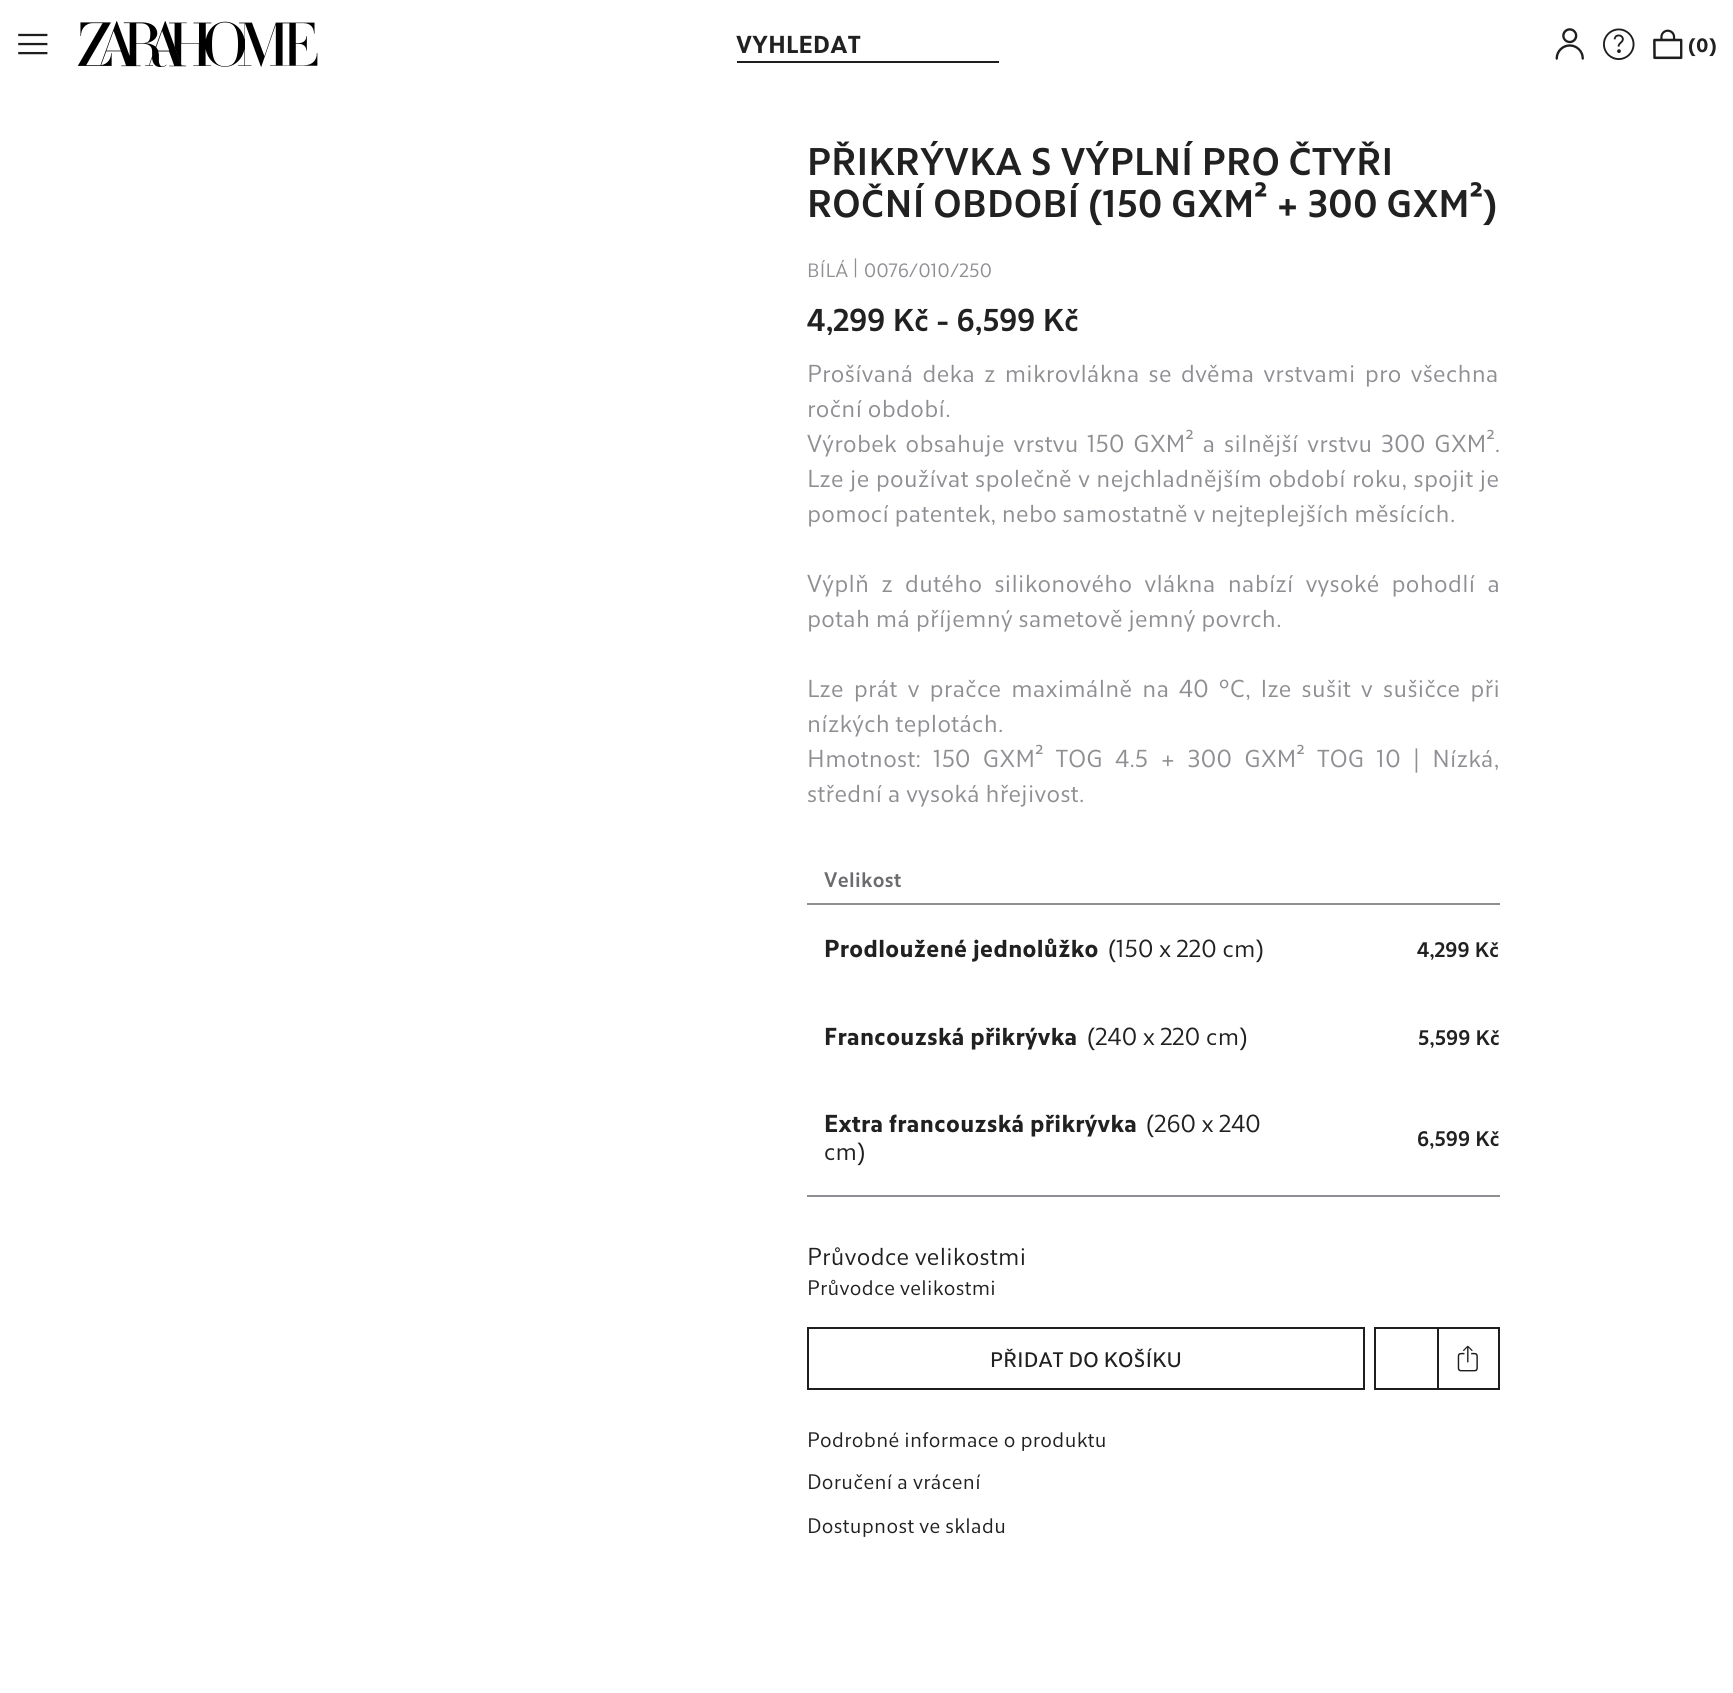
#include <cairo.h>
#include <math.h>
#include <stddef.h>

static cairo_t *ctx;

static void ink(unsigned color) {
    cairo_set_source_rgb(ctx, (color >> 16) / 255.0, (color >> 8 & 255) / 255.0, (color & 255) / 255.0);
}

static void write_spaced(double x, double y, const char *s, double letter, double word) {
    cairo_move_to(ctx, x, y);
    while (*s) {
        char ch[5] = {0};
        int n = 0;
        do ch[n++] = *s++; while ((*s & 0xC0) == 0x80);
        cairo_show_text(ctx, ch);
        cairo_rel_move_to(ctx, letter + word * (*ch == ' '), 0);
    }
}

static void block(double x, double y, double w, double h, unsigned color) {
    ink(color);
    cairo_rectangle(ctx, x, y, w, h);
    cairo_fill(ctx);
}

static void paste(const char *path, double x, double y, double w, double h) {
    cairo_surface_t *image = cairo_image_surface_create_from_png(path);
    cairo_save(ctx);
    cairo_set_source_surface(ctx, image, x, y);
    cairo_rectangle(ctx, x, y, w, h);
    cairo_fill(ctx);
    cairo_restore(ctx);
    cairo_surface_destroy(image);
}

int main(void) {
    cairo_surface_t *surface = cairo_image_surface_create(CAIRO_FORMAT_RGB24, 1733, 1693);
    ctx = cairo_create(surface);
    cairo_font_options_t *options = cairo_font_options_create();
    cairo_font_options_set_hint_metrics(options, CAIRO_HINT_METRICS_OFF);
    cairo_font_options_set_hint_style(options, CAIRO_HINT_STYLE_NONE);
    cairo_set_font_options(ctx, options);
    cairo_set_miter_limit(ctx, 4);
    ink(0xffffff);
    cairo_paint(ctx);
    paste("pic1.png", 18, 33, 30, 22);
    paste("pic2.png", 77, 21, 241, 46);
    cairo_select_font_face(ctx, "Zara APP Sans", CAIRO_FONT_SLANT_NORMAL, CAIRO_FONT_WEIGHT_BOLD);
    cairo_set_font_size(ctx, 24.5);
    ink(0x212121);
    write_spaced(736, 53, "VYHLEDAT", 0.35, 0);
    block(737, 61, 262, 2, 0x1e1e1e);
    paste("pic3.png", 1555, 28, 29, 32);
    paste("pic4.png", 1603, 28, 32, 32);
    paste("pic5.png", 1653, 29, 30, 31);
    cairo_set_font_size(ctx, 19.25);
    ink(0x212121);
    write_spaced(1688, 52, "(0)", 0.35, 0);
    cairo_select_font_face(ctx, "Zara APP Sans SemiBold", CAIRO_FONT_SLANT_NORMAL, CAIRO_FONT_WEIGHT_NORMAL);
    cairo_set_font_size(ctx, 38.5);
    write_spaced(807, 175, "PŘIKRÝVKA S VÝPLNÍ PRO ČTYŘI", 0.35, 0);
    write_spaced(807, 217, "ROČNÍ OBDOBÍ (150 GXM² + 300 GXM²)", 0.35, 0);
    cairo_select_font_face(ctx, "Zara APP Sans", CAIRO_FONT_SLANT_NORMAL, CAIRO_FONT_WEIGHT_NORMAL);
    cairo_set_font_size(ctx, 19.25);
    ink(0x8e8e93);
    write_spaced(807, 277, "BÍLÁ", 0.35, 0);
    write_spaced(853, 273, "|", 0.35, 0);
    write_spaced(864, 277, "0076/010/250", 0.35, 0);
    cairo_select_font_face(ctx, "Zara APP Sans SemiBold", CAIRO_FONT_SLANT_NORMAL, CAIRO_FONT_WEIGHT_NORMAL);
    cairo_set_font_size(ctx, 31.5);
    ink(0x212121);
    write_spaced(807, 331, "4,299 Kč - 6,599 Kč", 0.35, 0);
    cairo_select_font_face(ctx, "Zara APP Sans", CAIRO_FONT_SLANT_NORMAL, CAIRO_FONT_WEIGHT_NORMAL);
    cairo_set_font_size(ctx, 24.5);
    ink(0x8e8e93);
    write_spaced(807, 382, "Prošívaná deka z mikrovlákna se dvěma vrstvami pro všechna", 0.35, 3.5);
    write_spaced(807, 417, "roční období.", 0.35, 0);
    write_spaced(807, 452, "Výrobek obsahuje vrstvu 150 GXM² a silnější vrstvu 300 GXM².", 0.35, 3.25);
    write_spaced(807, 487, "Lze je používat společně v nejchladnějším období roku, spojit je", 0.35, 0.75);
    write_spaced(807, 522, "pomocí patentek, nebo samostatně v nejteplejších měsících.", 0.35, 0);
    write_spaced(807, 592, "Výplň z dutého silikonového vlákna nabízí vysoké pohodlí a", 0.35, 6.5);
    write_spaced(807, 627, "potah má příjemný sametově jemný povrch.", 0.35, 0);
    write_spaced(807, 697, "Lze prát v pračce maximálně na 40 ºC, lze sušit v sušičce při", 0.35, 4.4);
    write_spaced(807, 732, "nízkých teplotách.", 0.35, 0);
    write_spaced(807, 767, "Hmotnost: 150 GXM² TOG 4.5 + 300 GXM² TOG 10 | Nízká,", 0.35, 6.75);
    write_spaced(807, 802, "střední a vysoká hřejivost.", 0.35, 0);
    block(807, 1195, 693, 2, 0x8e8e93);
    cairo_select_font_face(ctx, "Zara APP Sans SemiBold", CAIRO_FONT_SLANT_NORMAL, CAIRO_FONT_WEIGHT_NORMAL);
    cairo_set_font_size(ctx, 21);
    ink(0x6c6c70);
    write_spaced(824, 887, "Velikost", 0.35, 0);
    block(807, 903, 693, 2, 0x8e8e93);
    cairo_select_font_face(ctx, "Zara APP Sans", CAIRO_FONT_SLANT_NORMAL, CAIRO_FONT_WEIGHT_BOLD);
    cairo_set_font_size(ctx, 24.5);
    ink(0x212121);
    write_spaced(824, 957, "Prodloužené jednolůžko", 0.35, 0);
    cairo_select_font_face(ctx, "Zara APP Sans", CAIRO_FONT_SLANT_NORMAL, CAIRO_FONT_WEIGHT_NORMAL);
    write_spaced(1108, 957, "(150 x 220 cm)", 0.35, 0);
    cairo_select_font_face(ctx, "Zara APP Sans SemiBold", CAIRO_FONT_SLANT_NORMAL, CAIRO_FONT_WEIGHT_NORMAL);
    cairo_set_font_size(ctx, 21);
    write_spaced(1417, 957, "4,299 Kč", 0.35, 0);
    cairo_select_font_face(ctx, "Zara APP Sans", CAIRO_FONT_SLANT_NORMAL, CAIRO_FONT_WEIGHT_BOLD);
    cairo_set_font_size(ctx, 24.5);
    write_spaced(824, 1045, "Francouzská přikrývka", 0.35, 0);
    cairo_select_font_face(ctx, "Zara APP Sans", CAIRO_FONT_SLANT_NORMAL, CAIRO_FONT_WEIGHT_NORMAL);
    write_spaced(1087, 1045, "(240 x 220 cm)", 0.35, 0);
    cairo_select_font_face(ctx, "Zara APP Sans SemiBold", CAIRO_FONT_SLANT_NORMAL, CAIRO_FONT_WEIGHT_NORMAL);
    cairo_set_font_size(ctx, 21);
    write_spaced(1418, 1045, "5,599 Kč", 0.35, 0);
    cairo_select_font_face(ctx, "Zara APP Sans", CAIRO_FONT_SLANT_NORMAL, CAIRO_FONT_WEIGHT_BOLD);
    cairo_set_font_size(ctx, 24.5);
    write_spaced(824, 1132, "Extra francouzská přikrývka", 0.35, 0);
    cairo_select_font_face(ctx, "Zara APP Sans", CAIRO_FONT_SLANT_NORMAL, CAIRO_FONT_WEIGHT_NORMAL);
    write_spaced(1146, 1132, "(260 x 240", 0.35, 0);
    write_spaced(824, 1160, "cm)", 0.35, 0);
    cairo_select_font_face(ctx, "Zara APP Sans SemiBold", CAIRO_FONT_SLANT_NORMAL, CAIRO_FONT_WEIGHT_NORMAL);
    cairo_set_font_size(ctx, 21);
    write_spaced(1417, 1146, "6,599 Kč", 0.35, 0);
    cairo_select_font_face(ctx, "Zara APP Sans", CAIRO_FONT_SLANT_NORMAL, CAIRO_FONT_WEIGHT_NORMAL);
    cairo_set_font_size(ctx, 24.5);
    write_spaced(807, 1265, "Průvodce velikostmi", 0.35, 0);
    cairo_set_font_size(ctx, 21);
    write_spaced(807, 1295, "Průvodce velikostmi", 0.35, 0);
    cairo_rectangle(ctx, 808, 1328, 556, 61);
    ink(0x1e1e1e);
    cairo_stroke(ctx);
    cairo_select_font_face(ctx, "Zara APP Sans Medium", CAIRO_FONT_SLANT_NORMAL, CAIRO_FONT_WEIGHT_NORMAL);
    ink(0x212121);
    write_spaced(990, 1367, "PŘIDAT DO KOŠÍKU", 0.35, 0);
    block(1374, 1327, 63, 2, 0x1e1e1e);
    block(1374, 1388, 63, 2, 0x1e1e1e);
    block(1374, 1327, 2, 63, 0x1e1e1e);
    cairo_rectangle(ctx, 1438, 1328, 61, 61);
    cairo_stroke(ctx);
    paste("pic6.png", 1457, 1345, 21, 27);
    cairo_select_font_face(ctx, "Zara APP Sans", CAIRO_FONT_SLANT_NORMAL, CAIRO_FONT_WEIGHT_NORMAL);
    ink(0x212121);
    write_spaced(807, 1447, "Podrobné informace o produktu", 0.35, 0);
    write_spaced(807, 1489, "Doručení a vrácení", 0.35, 0);
    write_spaced(807, 1533, "Dostupnost ve skladu", 0.35, 0);
    cairo_surface_write_to_png(surface, "screenshot.png");
    cairo_font_options_destroy(options);
    cairo_destroy(ctx);
    cairo_surface_destroy(surface);
    return 0;
}
